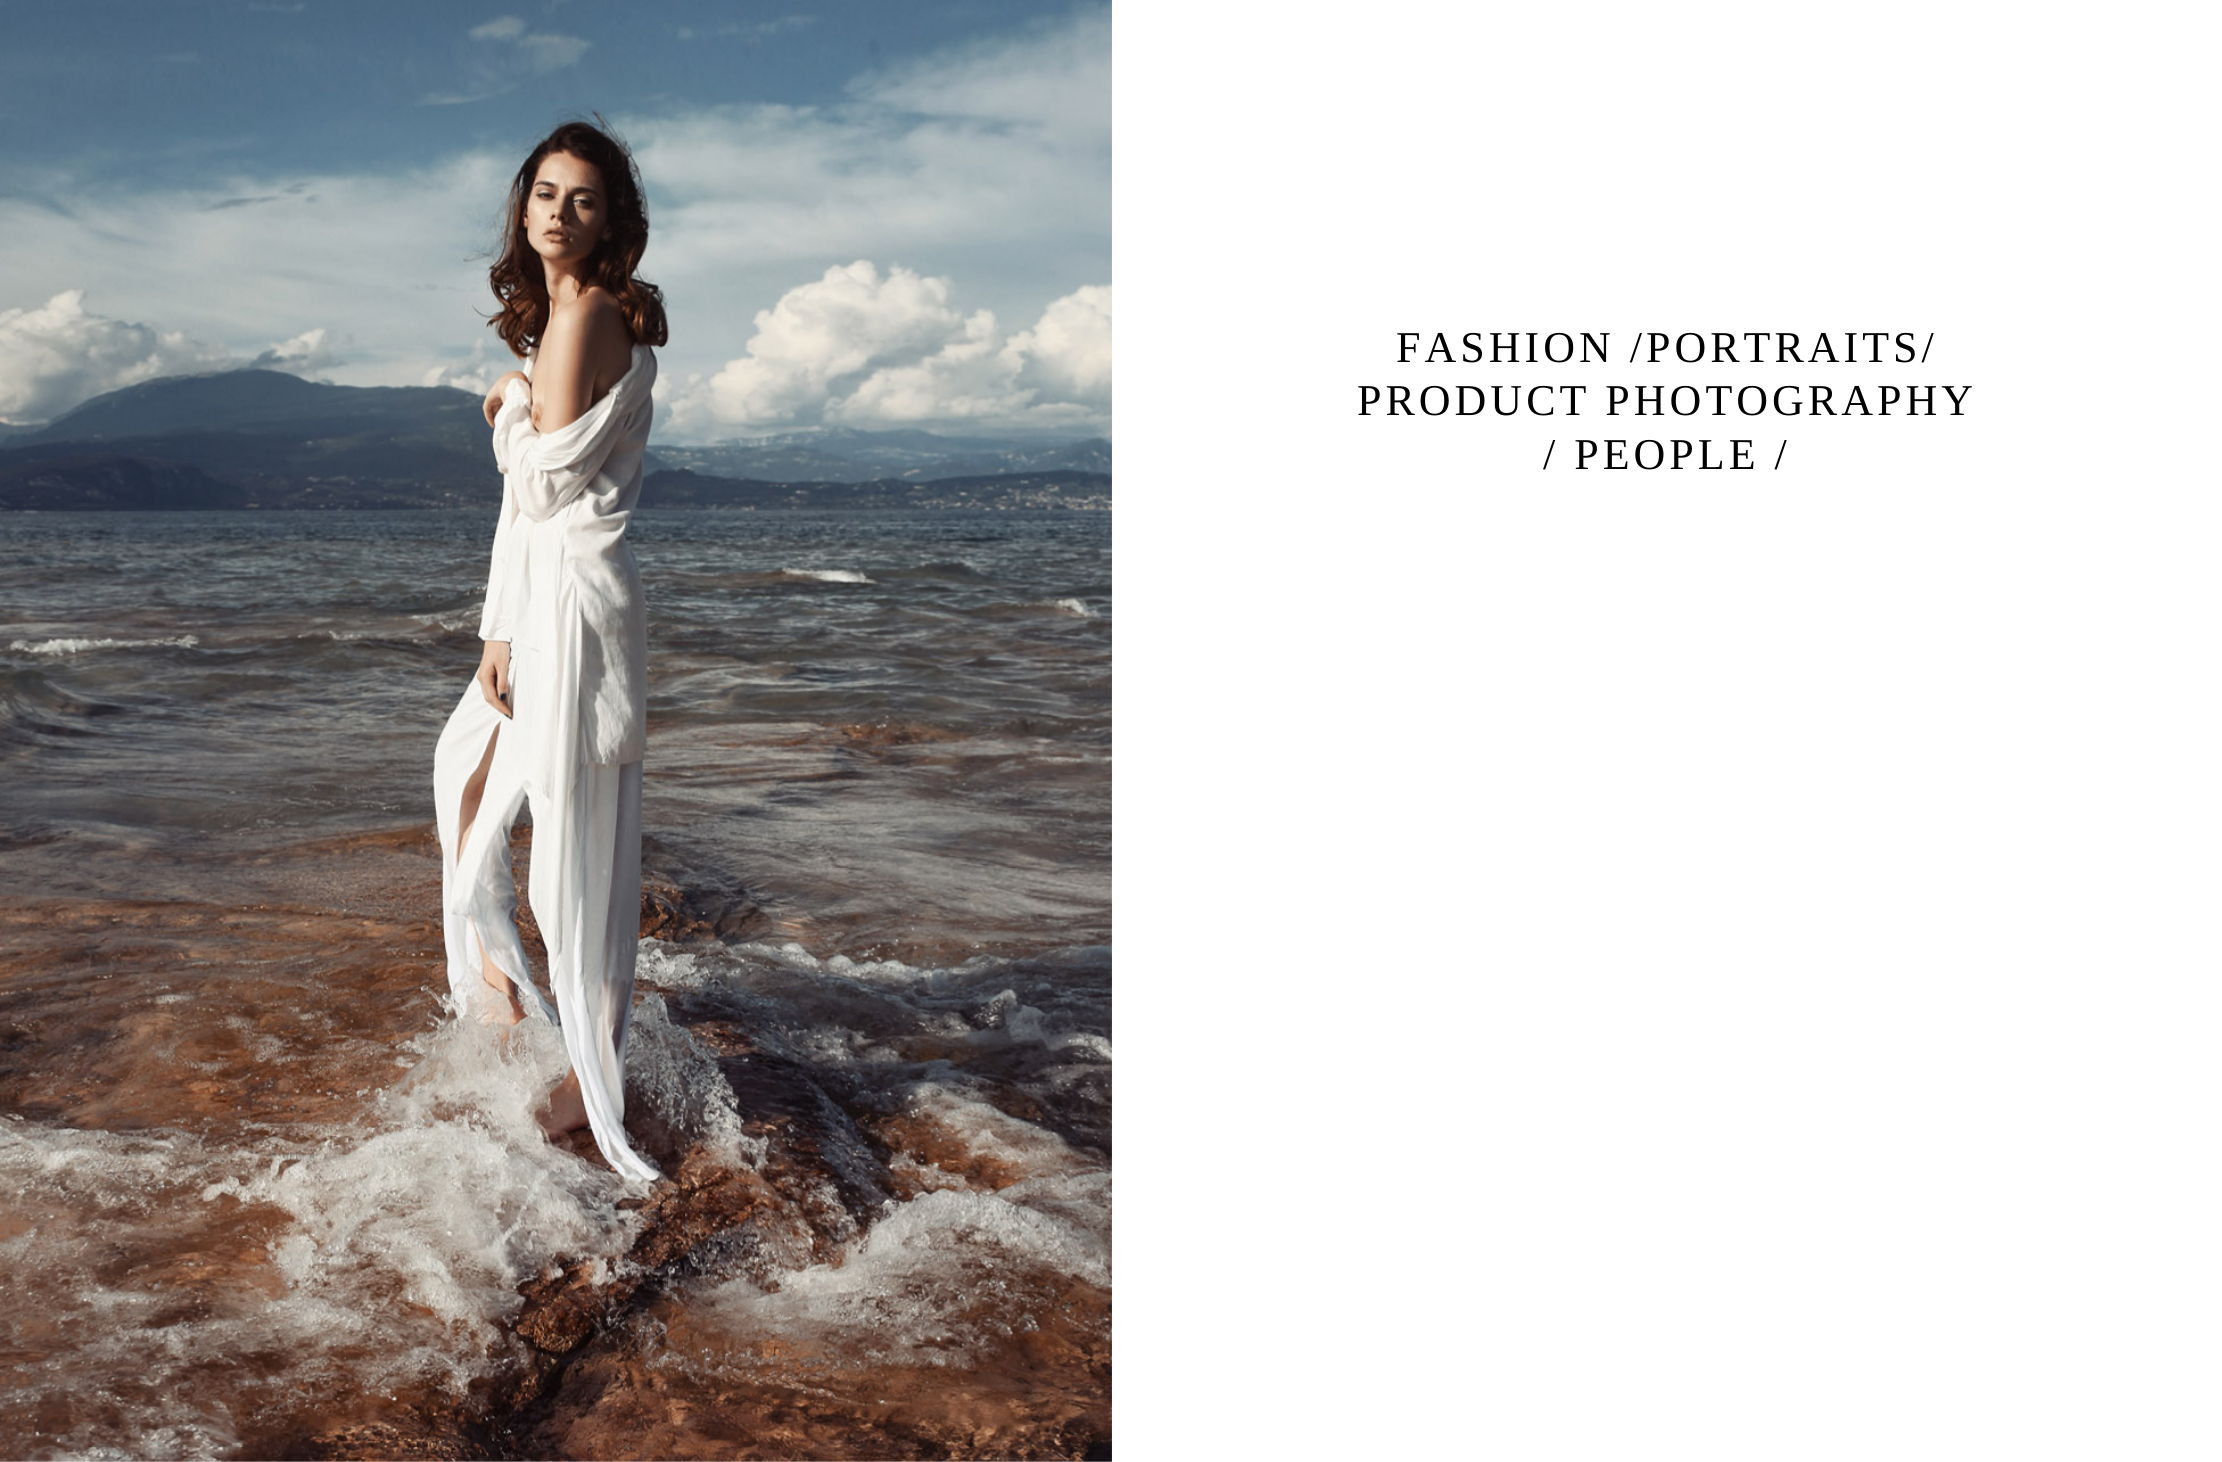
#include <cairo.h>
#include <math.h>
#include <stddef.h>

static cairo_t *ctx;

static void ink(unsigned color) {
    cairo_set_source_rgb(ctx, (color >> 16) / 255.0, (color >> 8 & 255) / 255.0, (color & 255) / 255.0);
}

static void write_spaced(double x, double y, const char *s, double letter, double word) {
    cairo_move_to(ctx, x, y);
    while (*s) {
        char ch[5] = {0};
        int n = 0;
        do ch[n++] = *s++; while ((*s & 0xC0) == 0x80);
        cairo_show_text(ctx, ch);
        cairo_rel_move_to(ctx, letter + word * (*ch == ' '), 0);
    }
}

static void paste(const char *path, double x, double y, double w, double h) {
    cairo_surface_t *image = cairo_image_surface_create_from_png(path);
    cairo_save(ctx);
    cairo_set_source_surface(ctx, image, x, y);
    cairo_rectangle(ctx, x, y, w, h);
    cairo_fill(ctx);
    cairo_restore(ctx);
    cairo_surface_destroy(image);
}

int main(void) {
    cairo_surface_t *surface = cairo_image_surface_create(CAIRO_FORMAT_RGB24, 2222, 1462);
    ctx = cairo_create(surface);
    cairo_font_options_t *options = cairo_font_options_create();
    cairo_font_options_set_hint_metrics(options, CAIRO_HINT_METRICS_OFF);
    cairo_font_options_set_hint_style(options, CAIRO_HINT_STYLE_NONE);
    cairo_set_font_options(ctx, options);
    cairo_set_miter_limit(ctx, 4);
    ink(0xffffff);
    cairo_paint(ctx);
    paste("pic1.png", 0, 0, 1112, 1462);
    cairo_select_font_face(ctx, "Liberation Serif", CAIRO_FONT_SLANT_NORMAL, CAIRO_FONT_WEIGHT_NORMAL);
    cairo_set_font_size(ctx, 44);
    ink(0x000000);
    write_spaced(1396, 362, "FASHION /PORTRAITS/", 4, 0);
    write_spaced(1357, 415, "PRODUCT PHOTOGRAPHY", 4, 0);
    write_spaced(1543, 469, "/ PEOPLE /", 4, 0);
    cairo_surface_write_to_png(surface, "screenshot.png");
    cairo_font_options_destroy(options);
    cairo_destroy(ctx);
    cairo_surface_destroy(surface);
    return 0;
}
